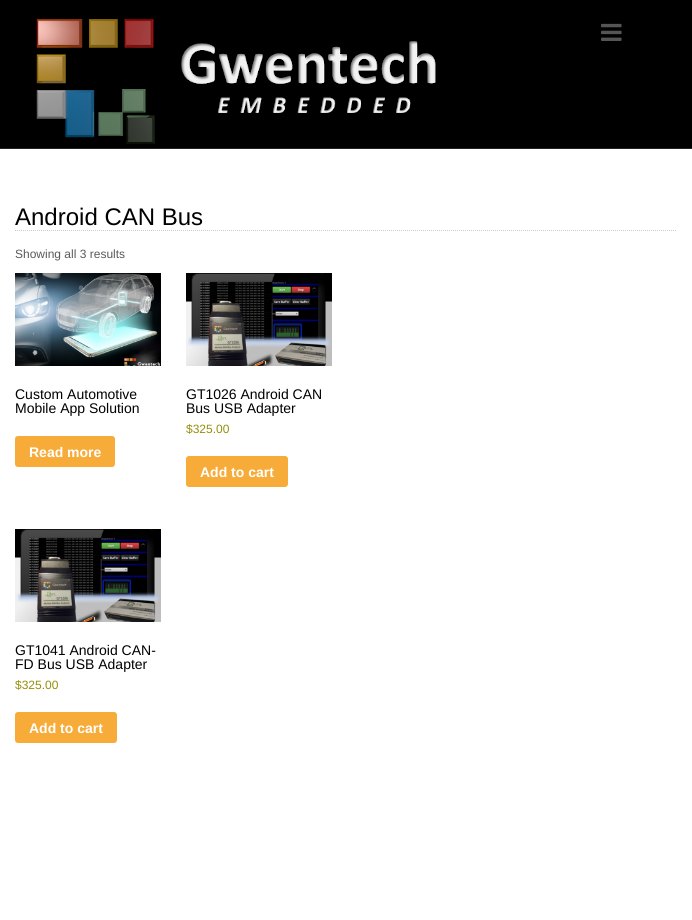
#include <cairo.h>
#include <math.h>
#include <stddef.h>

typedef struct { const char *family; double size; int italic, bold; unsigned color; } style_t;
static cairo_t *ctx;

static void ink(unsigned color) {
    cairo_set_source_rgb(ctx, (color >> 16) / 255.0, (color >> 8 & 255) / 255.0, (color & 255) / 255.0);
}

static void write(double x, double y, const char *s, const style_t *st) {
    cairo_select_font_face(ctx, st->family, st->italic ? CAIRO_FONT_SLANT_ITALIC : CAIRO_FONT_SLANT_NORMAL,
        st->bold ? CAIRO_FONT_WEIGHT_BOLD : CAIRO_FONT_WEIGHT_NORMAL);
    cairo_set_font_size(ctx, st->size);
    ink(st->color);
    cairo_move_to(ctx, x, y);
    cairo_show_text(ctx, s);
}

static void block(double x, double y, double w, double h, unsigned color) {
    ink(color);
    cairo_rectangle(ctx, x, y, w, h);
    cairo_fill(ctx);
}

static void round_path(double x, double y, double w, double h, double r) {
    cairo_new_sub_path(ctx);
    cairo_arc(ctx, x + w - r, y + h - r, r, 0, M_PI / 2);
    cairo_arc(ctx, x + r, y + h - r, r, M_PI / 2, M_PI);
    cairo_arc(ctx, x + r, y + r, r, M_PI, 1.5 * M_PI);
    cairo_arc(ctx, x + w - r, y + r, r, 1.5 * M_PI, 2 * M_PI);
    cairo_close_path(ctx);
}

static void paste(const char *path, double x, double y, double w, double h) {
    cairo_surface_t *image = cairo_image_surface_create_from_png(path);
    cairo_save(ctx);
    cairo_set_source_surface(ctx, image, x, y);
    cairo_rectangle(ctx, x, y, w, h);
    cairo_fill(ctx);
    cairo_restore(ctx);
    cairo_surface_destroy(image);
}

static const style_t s1 = {"Liberation Sans", 24, 0, 0, 0x000000};
static const style_t s2 = {"Liberation Sans", 12, 0, 0, 0x595959};
static const style_t s3 = {"Liberation Sans", 14, 0, 0, 0x000000};
static const style_t s4 = {"Liberation Sans", 14, 0, 1, 0xffffff};
static const style_t s5 = {"Liberation Sans", 12, 0, 0, 0x958e09};

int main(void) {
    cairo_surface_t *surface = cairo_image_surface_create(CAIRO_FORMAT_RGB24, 692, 920);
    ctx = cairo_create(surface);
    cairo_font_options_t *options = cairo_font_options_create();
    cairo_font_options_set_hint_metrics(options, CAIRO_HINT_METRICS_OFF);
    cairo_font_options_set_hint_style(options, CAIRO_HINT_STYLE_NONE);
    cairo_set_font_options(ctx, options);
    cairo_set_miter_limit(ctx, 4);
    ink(0xffffff);
    cairo_paint(ctx);
    block(0, 0, 692, 148, 0x000000);
    block(0, 148, 692, 1, 0x222222);
    paste("pic1.png", 36, 19, 400, 125);
    paste("pic2.png", 601, 23, 21, 18);
    cairo_new_path(ctx);
    cairo_move_to(ctx, 15, 230.5);
    cairo_line_to(ctx, 677, 230.5);
    ink(0xcccccc);
    cairo_set_line_width(ctx, 1);
    cairo_set_dash(ctx, (double[]){1, 1}, 2, 0);
    cairo_stroke(ctx);
    write(15, 225, "Android CAN Bus", &s1);
    write(15, 258, "Showing all 3 results", &s2);
    paste("pic3.png", 15, 273, 146, 93);
    write(15, 399, "Custom Automotive", &s3);
    write(15, 413, "Mobile App Solution", &s3);
    ink(0xf7ab38);
    round_path(15, 436, 100, 31, 3);
    cairo_fill(ctx);
    write(29, 457, "Read more", &s4);
    paste("pic4.png", 186, 273, 146, 93);
    write(186, 399, "GT1026 Android CAN", &s3);
    write(186, 413, "Bus USB Adapter", &s3);
    write(186, 433, "$325.00", &s5);
    ink(0xf7ab38);
    round_path(186, 456, 102, 31, 3);
    cairo_fill(ctx);
    write(200, 477, "Add to cart", &s4);
    paste("pic4.png", 15, 529, 146, 93);
    write(15, 655, "GT1041 Android CAN-", &s3);
    write(15, 669, "FD Bus USB Adapter", &s3);
    write(15, 689, "$325.00", &s5);
    ink(0xf7ab38);
    round_path(15, 712, 102, 31, 3);
    cairo_fill(ctx);
    write(29, 733, "Add to cart", &s4);
    cairo_surface_write_to_png(surface, "screenshot.png");
    cairo_font_options_destroy(options);
    cairo_destroy(ctx);
    cairo_surface_destroy(surface);
    return 0;
}
